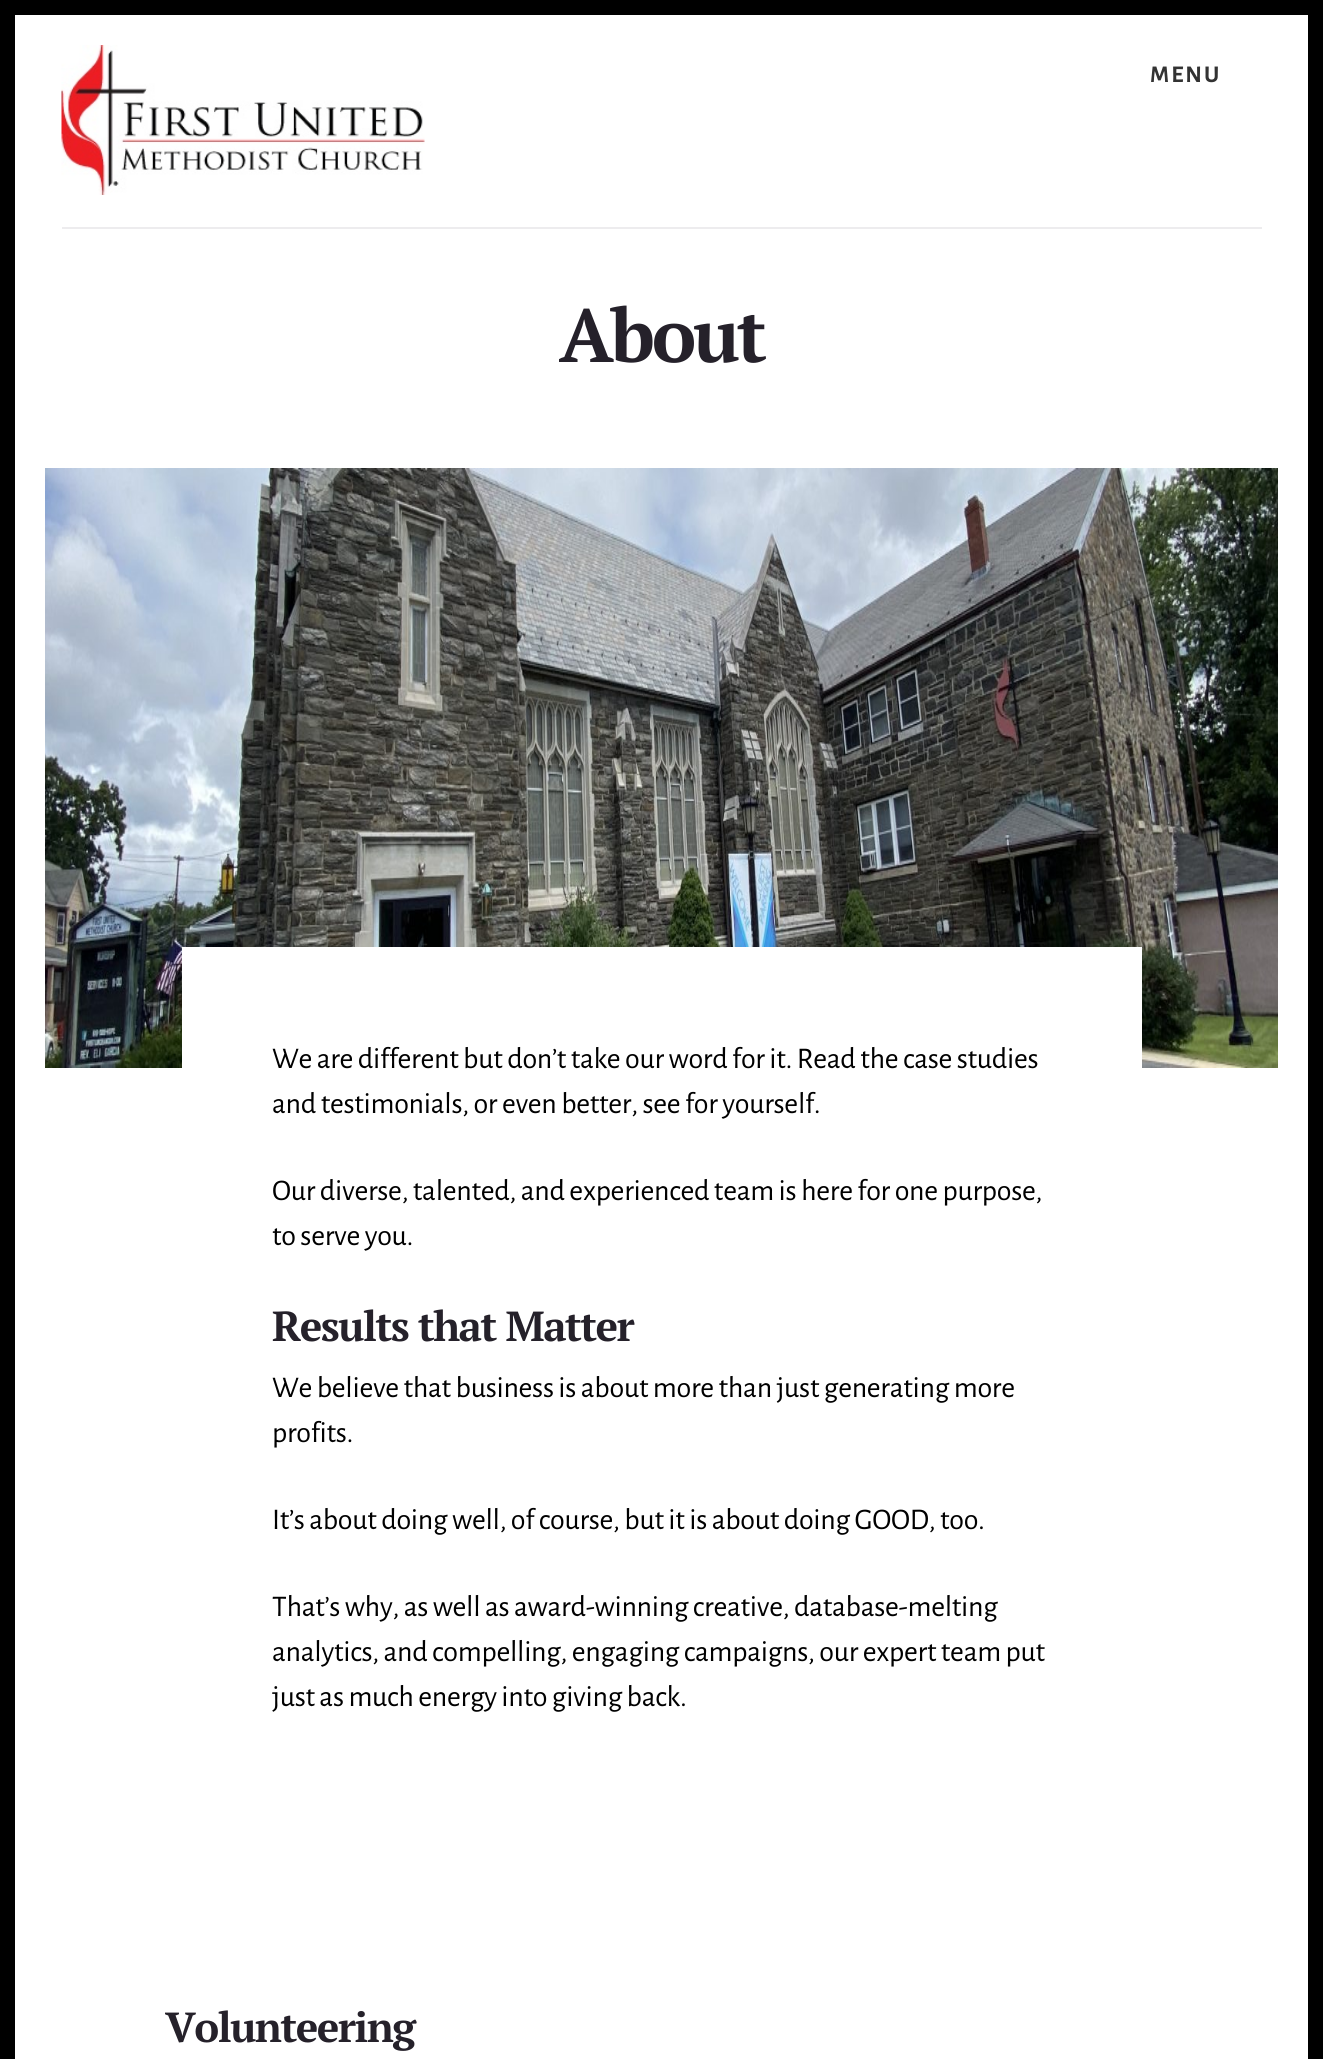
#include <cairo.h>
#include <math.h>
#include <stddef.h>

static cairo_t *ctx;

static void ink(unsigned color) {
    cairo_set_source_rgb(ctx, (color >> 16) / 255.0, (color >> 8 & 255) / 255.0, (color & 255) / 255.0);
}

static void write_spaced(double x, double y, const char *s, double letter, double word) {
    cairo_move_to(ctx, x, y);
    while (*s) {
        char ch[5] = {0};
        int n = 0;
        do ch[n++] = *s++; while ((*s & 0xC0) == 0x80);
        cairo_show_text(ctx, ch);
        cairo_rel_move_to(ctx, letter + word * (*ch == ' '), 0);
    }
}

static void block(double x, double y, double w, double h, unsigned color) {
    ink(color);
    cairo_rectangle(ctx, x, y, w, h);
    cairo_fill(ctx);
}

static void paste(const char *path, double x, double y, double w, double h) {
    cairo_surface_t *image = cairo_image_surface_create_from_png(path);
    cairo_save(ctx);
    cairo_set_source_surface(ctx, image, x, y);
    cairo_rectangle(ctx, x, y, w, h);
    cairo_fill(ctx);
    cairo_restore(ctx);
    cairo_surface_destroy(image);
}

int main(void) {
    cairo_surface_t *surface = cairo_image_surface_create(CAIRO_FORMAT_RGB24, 1323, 2059);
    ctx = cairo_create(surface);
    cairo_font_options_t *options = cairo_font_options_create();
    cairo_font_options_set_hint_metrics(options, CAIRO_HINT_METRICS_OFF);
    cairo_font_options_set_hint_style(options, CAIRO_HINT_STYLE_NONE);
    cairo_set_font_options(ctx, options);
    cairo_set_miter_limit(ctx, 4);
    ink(0x000000);
    cairo_paint(ctx);
    block(15, 15, 1293, 2044, 0xffffff);
    block(62, 227, 1200, 2, 0xedecee);
    paste("pic1.png", 61, 45, 364, 150);
    cairo_select_font_face(ctx, "Alegreya Sans", CAIRO_FONT_SLANT_NORMAL, CAIRO_FONT_WEIGHT_BOLD);
    cairo_set_font_size(ctx, 24);
    ink(0x333333);
    write_spaced(1150, 82, "MENU", 2, 0);
    cairo_select_font_face(ctx, "PT Serif", CAIRO_FONT_SLANT_NORMAL, CAIRO_FONT_WEIGHT_BOLD);
    cairo_set_font_size(ctx, 75);
    ink(0x25212a);
    write_spaced(559, 362, "About", -3, 0);
    paste("pic2.png", 45, 468, 1233, 600);
    block(182, 947, 960, 121, 0xffffff);
    cairo_select_font_face(ctx, "Alegreya Sans", CAIRO_FONT_SLANT_NORMAL, CAIRO_FONT_WEIGHT_NORMAL);
    cairo_set_font_size(ctx, 30);
    ink(0x000000);
    write_spaced(272, 1068, "We are different but don’t take our word for it. Read the case studies", -0.3, 0);
    write_spaced(272, 1113, "and testimonials, or even better, see for yourself.", -0.3, 0);
    write_spaced(272, 1200, "Our diverse, talented, and experienced team is here for one purpose,", -0.3, 0);
    write_spaced(272, 1245, "to serve you.", -0.3, 0);
    cairo_select_font_face(ctx, "PT Serif", CAIRO_FONT_SLANT_NORMAL, CAIRO_FONT_WEIGHT_BOLD);
    cairo_set_font_size(ctx, 42);
    ink(0x25212a);
    write_spaced(272, 1341, "Results that Matter", -1.5, 0);
    cairo_select_font_face(ctx, "Alegreya Sans", CAIRO_FONT_SLANT_NORMAL, CAIRO_FONT_WEIGHT_NORMAL);
    cairo_set_font_size(ctx, 30);
    ink(0x000000);
    write_spaced(272, 1397, "We believe that business is about more than just generating more", -0.3, 0);
    write_spaced(272, 1442, "profits.", -0.3, 0);
    write_spaced(272, 1529, "It’s about doing well, of course, but it is about doing GOOD, too.", -0.3, 0);
    write_spaced(272, 1616, "That’s why, as well as award-winning creative, database-melting", -0.3, 0);
    write_spaced(272, 1661, "analytics, and compelling, engaging campaigns, our expert team put", -0.3, 0);
    write_spaced(272, 1706, "just as much energy into giving back.", -0.3, 0);
    cairo_select_font_face(ctx, "PT Serif", CAIRO_FONT_SLANT_NORMAL, CAIRO_FONT_WEIGHT_BOLD);
    cairo_set_font_size(ctx, 42);
    ink(0x25212a);
    write_spaced(165, 2042, "Volunteering", -1.5, 0);
    cairo_surface_write_to_png(surface, "screenshot.png");
    cairo_font_options_destroy(options);
    cairo_destroy(ctx);
    cairo_surface_destroy(surface);
    return 0;
}
